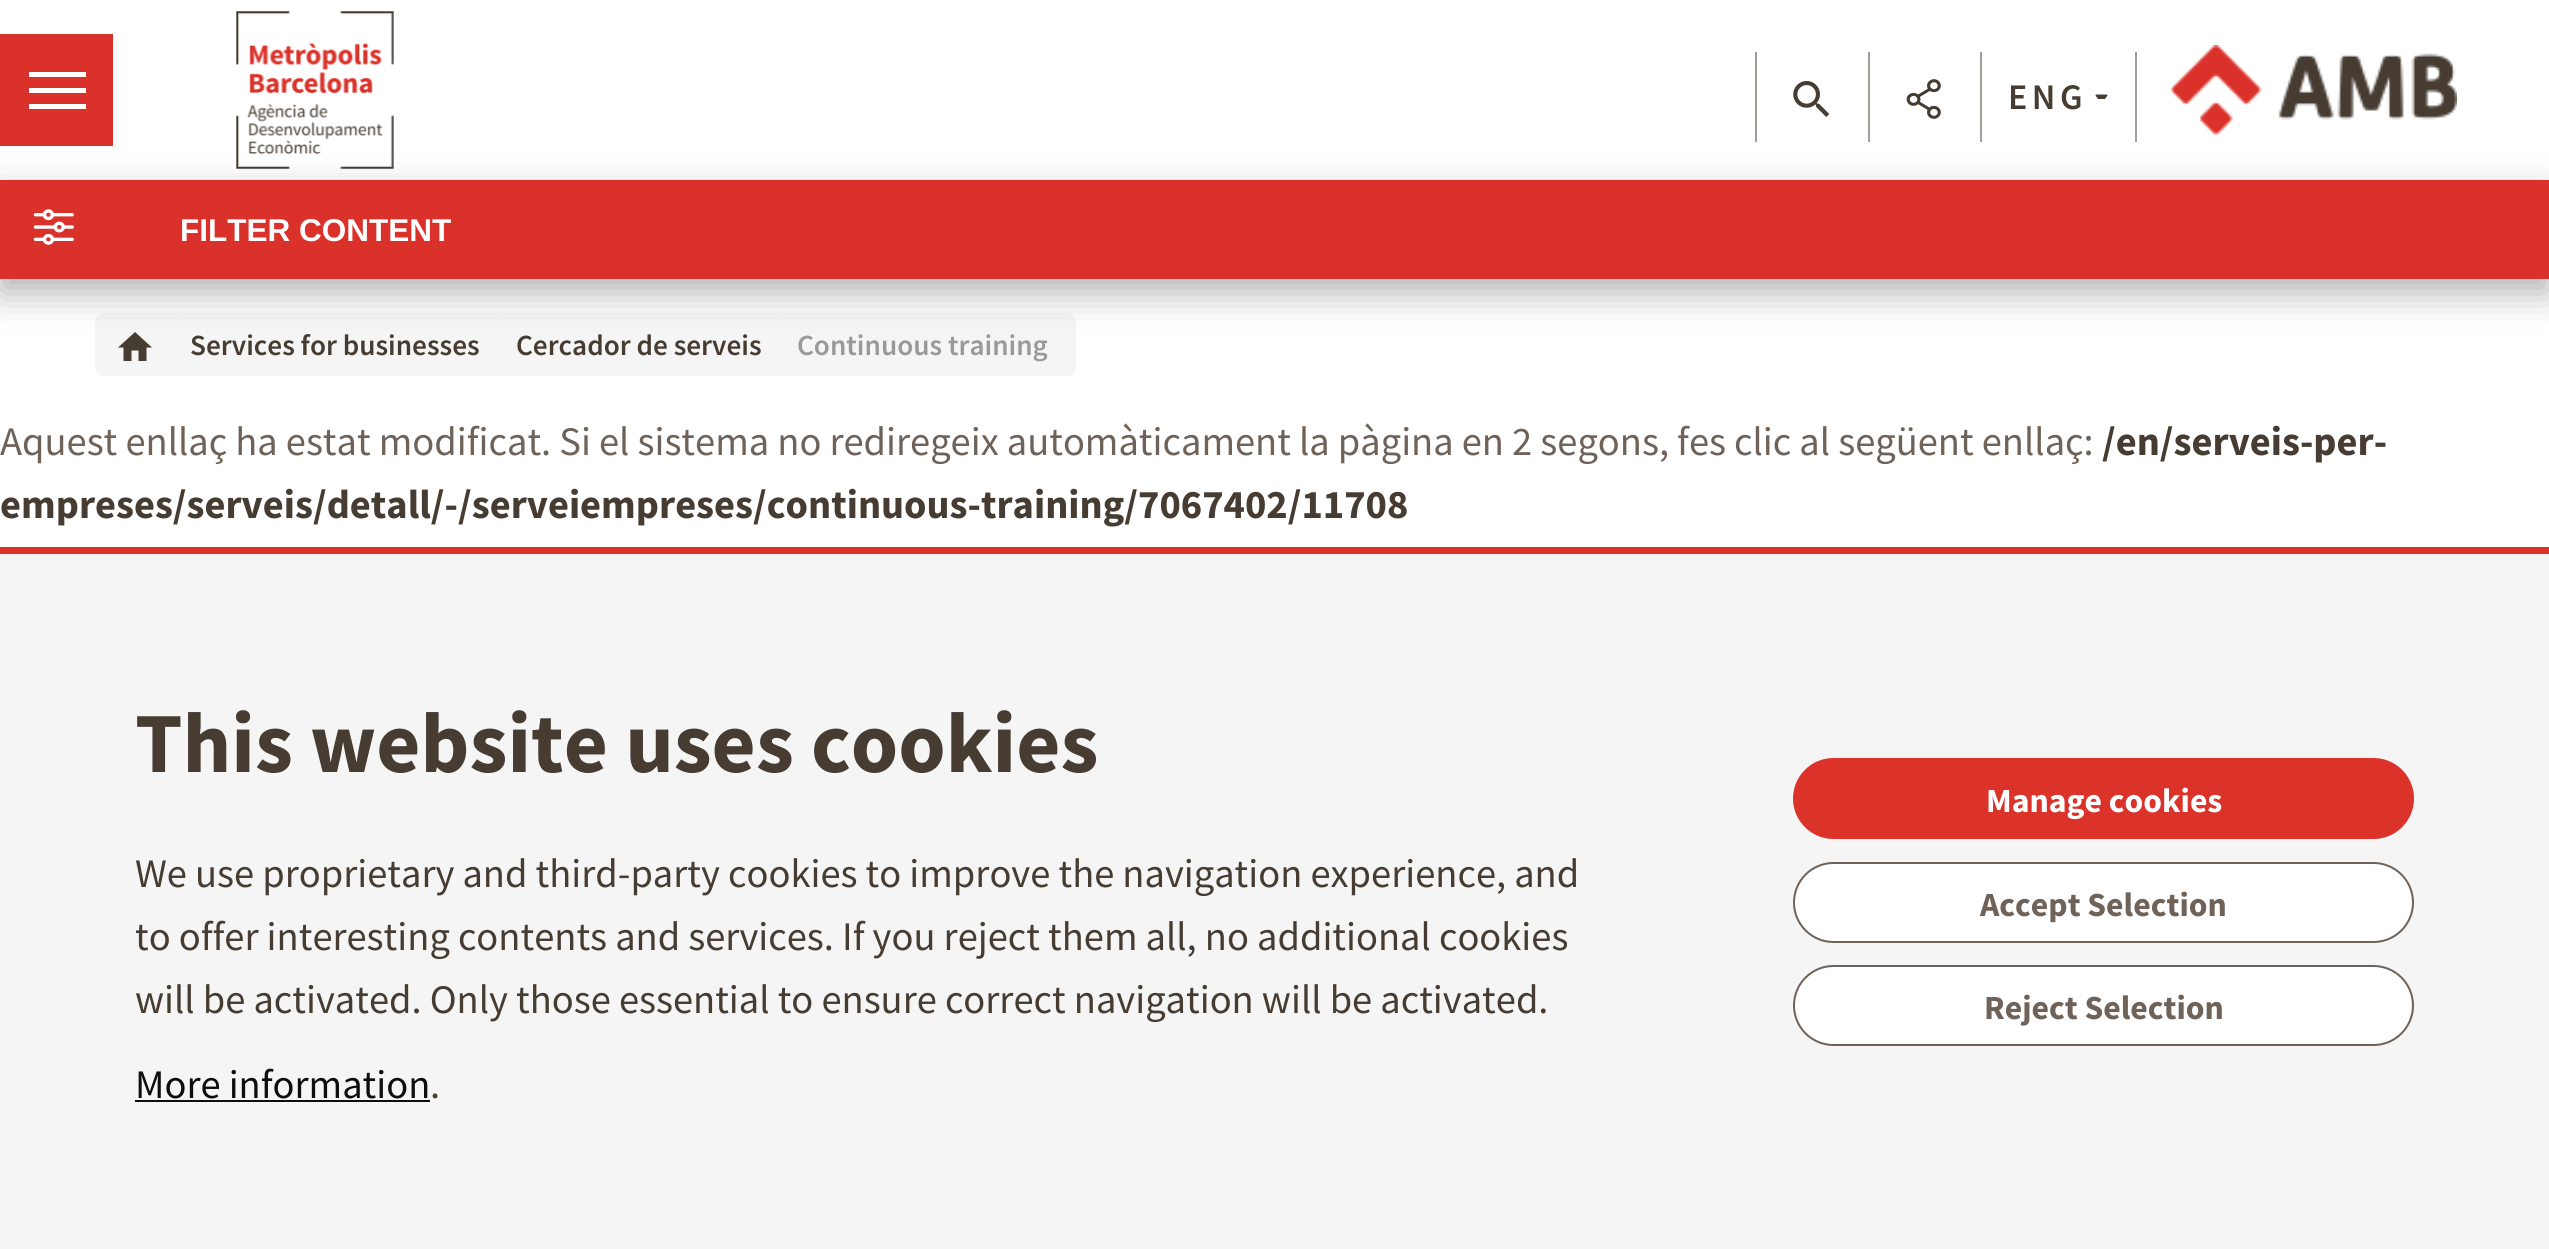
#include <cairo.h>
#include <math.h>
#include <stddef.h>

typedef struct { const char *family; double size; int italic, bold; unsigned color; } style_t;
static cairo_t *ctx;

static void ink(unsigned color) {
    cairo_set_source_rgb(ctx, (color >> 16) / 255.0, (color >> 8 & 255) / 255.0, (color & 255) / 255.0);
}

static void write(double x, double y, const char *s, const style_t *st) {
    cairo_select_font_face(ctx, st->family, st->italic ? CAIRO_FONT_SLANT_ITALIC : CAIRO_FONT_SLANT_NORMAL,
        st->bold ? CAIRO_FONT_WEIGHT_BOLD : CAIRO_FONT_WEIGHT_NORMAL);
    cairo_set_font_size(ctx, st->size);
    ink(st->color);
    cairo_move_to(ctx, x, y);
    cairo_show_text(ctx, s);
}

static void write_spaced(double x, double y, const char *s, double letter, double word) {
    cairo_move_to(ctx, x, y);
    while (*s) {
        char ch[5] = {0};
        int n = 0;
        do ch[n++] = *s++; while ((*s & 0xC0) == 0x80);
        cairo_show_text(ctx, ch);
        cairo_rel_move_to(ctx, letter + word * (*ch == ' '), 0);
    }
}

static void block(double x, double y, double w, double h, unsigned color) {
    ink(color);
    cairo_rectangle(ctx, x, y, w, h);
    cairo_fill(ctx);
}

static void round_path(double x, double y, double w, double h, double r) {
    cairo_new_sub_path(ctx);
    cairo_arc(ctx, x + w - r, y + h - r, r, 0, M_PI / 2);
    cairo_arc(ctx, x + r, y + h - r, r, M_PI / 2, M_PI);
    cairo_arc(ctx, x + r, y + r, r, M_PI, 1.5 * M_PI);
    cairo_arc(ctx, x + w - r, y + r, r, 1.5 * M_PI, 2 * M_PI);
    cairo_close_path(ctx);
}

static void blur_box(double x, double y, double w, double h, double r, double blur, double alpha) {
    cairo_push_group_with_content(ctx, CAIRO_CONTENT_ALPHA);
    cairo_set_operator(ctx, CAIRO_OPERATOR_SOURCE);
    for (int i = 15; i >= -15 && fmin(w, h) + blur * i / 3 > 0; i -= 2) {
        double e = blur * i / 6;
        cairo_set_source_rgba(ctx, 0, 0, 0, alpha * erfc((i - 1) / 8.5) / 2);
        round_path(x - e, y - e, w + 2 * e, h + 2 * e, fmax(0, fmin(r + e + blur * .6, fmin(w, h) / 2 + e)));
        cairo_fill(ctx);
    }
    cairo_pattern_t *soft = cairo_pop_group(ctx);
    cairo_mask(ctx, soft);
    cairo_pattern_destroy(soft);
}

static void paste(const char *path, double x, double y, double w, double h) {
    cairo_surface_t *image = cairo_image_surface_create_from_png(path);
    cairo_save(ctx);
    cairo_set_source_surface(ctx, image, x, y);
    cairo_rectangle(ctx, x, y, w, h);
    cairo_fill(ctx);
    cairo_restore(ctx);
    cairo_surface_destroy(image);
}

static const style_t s1 = {"Liberation Sans", 31.5, 0, 1, 0xffffff};
static const style_t s2 = {"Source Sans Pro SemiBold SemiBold", 29.25, 0, 0, 0x463c32};
static const style_t s3 = {"Source Sans Pro SemiBold SemiBold", 29.25, 0, 0, 0x999999};
static const style_t s4 = {"Source Sans Pro", 40.5, 0, 0, 0x6e6259};
static const style_t s5 = {"Source Sans Pro", 40.5, 0, 1, 0x463c32};
static const style_t s6 = {"Source Sans Pro", 85.5, 0, 1, 0x463c32};
static const style_t s7 = {"Source Sans Pro", 40.5, 0, 0, 0x463c32};
static const style_t s8 = {"Source Sans Pro", 40.5, 0, 0, 0x0e0e0e};
static const style_t s9 = {"Source Sans Pro", 33.75, 0, 1, 0xffffff};
static const style_t s10 = {"Source Sans Pro", 33.75, 0, 1, 0x6e6259};

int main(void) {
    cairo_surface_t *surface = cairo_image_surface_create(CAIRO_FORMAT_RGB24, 2549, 1249);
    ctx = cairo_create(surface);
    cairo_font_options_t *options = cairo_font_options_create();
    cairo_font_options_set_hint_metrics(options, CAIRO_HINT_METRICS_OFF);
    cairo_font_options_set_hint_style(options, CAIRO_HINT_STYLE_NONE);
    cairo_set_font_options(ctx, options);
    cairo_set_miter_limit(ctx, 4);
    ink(0xffffff);
    cairo_paint(ctx);
    block(1755, 52, 2, 90, 0xa39e99);
    block(1868, 52, 2, 90, 0xa39e99);
    block(2135, 52, 2, 90, 0xa39e99);
    block(1980, 52, 2, 90, 0xa39e99);
    paste("pic4.png", 236, 11, 158, 158);
    ink(0xf5f5f5);
    round_path(95, 313, 87, 63, 9);
    cairo_fill(ctx);
    ink(0x463c32);
    cairo_new_path(ctx);
    cairo_move_to(ctx, 146.5, 347.5);
    cairo_line_to(ctx, 146.5, 361);
    cairo_line_to(ctx, 138.5, 361);
    cairo_line_to(ctx, 138.5, 350.5);
    cairo_line_to(ctx, 131.5, 350.5);
    cairo_line_to(ctx, 131.5, 361);
    cairo_line_to(ctx, 123.5, 361);
    cairo_line_to(ctx, 123.5, 347.5);
    cairo_line_to(ctx, 118, 347.5);
    cairo_line_to(ctx, 135, 332);
    cairo_line_to(ctx, 152, 347.5);
    cairo_close_path(ctx);
    cairo_fill(ctx);
    ink(0xf5f5f5);
    round_path(171, 313, 335, 63, 9);
    cairo_fill(ctx);
    round_path(495, 313, 293, 63, 9);
    cairo_fill(ctx);
    round_path(776, 313, 300, 63, 9);
    cairo_fill(ctx);
    ink(0x000000);
    blur_box(0, 194, 2549, 99, 0, 18, 0.3);
    block(0, 34, 113, 112, 0xda322a);
    block(29, 88, 57, 5, 0xffffff);
    block(29, 72, 57, 5, 0xffffff);
    block(29, 104, 57, 5, 0xffffff);
    paste("pic1.png", 1793, 81, 37, 36);
    paste("pic2.png", 1906, 79, 35, 40);
    cairo_select_font_face(ctx, "Source Sans Pro SemiBold SemiBold", CAIRO_FONT_SLANT_NORMAL, CAIRO_FONT_WEIGHT_NORMAL);
    cairo_set_font_size(ctx, 36);
    ink(0x463c32);
    write_spaced(2008, 109, "ENG", 4.5, 0);
    cairo_new_path(ctx);
    cairo_move_to(ctx, 2097, 94.5);
    cairo_line_to(ctx, 2107, 94.5);
    cairo_line_to(ctx, 2107.5, 95.5);
    cairo_line_to(ctx, 2105, 99);
    cairo_line_to(ctx, 2098, 99);
    cairo_line_to(ctx, 2095.5, 95.5);
    cairo_curve_to(ctx, 2095.5, 95, 2096, 94.5, 2097, 94.5);
    cairo_close_path(ctx);
    cairo_fill(ctx);
    paste("pic3.png", 2170, 45, 287, 90);
    block(0, 180, 2549, 99, 0xda322a);
    paste("pic5.png", 33, 209, 41, 36);
    write(180, 241, "FILTER CONTENT", &s1);
    write(190, 355, "Services for businesses", &s2);
    write(516, 355, "Cercador de serveis", &s2);
    write(797, 355, "Continuous training", &s3);
    write(0, 455, "Aquest enllaç ha estat modificat. Si el sistema no rediregeix automàticament la pàgina en 2 segons, fes clic al següent enllaç:", &s4);
    write(2102, 455, "/en/serveis-per-", &s5);
    write(0, 518, "empreses/serveis/detall/-/serveiempreses/continuous-training/7067402/11708", &s5);
    block(0, 554, 2549, 695, 0xf5f5f5);
    block(0, 547, 2549, 7, 0xdb322a);
    write(135, 772, "This website uses cookies", &s6);
    write(135, 887, "We use proprietary and third-party cookies to improve the navigation experience, and", &s7);
    write(135, 950, "to offer interesting contents and services. If you reject them all, no additional cookies", &s7);
    write(135, 1013, "will be activated. Only those essential to ensure correct navigation will be activated.", &s7);
    write(135, 1098, "More information", &s8);
    block(135, 1100, 295, 2, 0x0e0e0e);
    write(430, 1098, ".", &s7);
    ink(0xdb322a);
    round_path(1794, 759, 619, 79, 39.5);
    cairo_fill_preserve(ctx);
    cairo_stroke(ctx);
    write(1986, 812, "Manage cookies", &s9);
    round_path(1794, 863, 619, 79, 39.5);
    cairo_fill_preserve(ctx);
    ink(0x6e6259);
    cairo_stroke(ctx);
    write(1980, 916, "Accept Selection", &s10);
    ink(0xffffff);
    round_path(1794, 966, 619, 79, 39.5);
    cairo_fill_preserve(ctx);
    ink(0x6e6259);
    cairo_stroke(ctx);
    write(1984, 1019, "Reject Selection", &s10);
    cairo_surface_write_to_png(surface, "screenshot.png");
    cairo_font_options_destroy(options);
    cairo_destroy(ctx);
    cairo_surface_destroy(surface);
    return 0;
}
